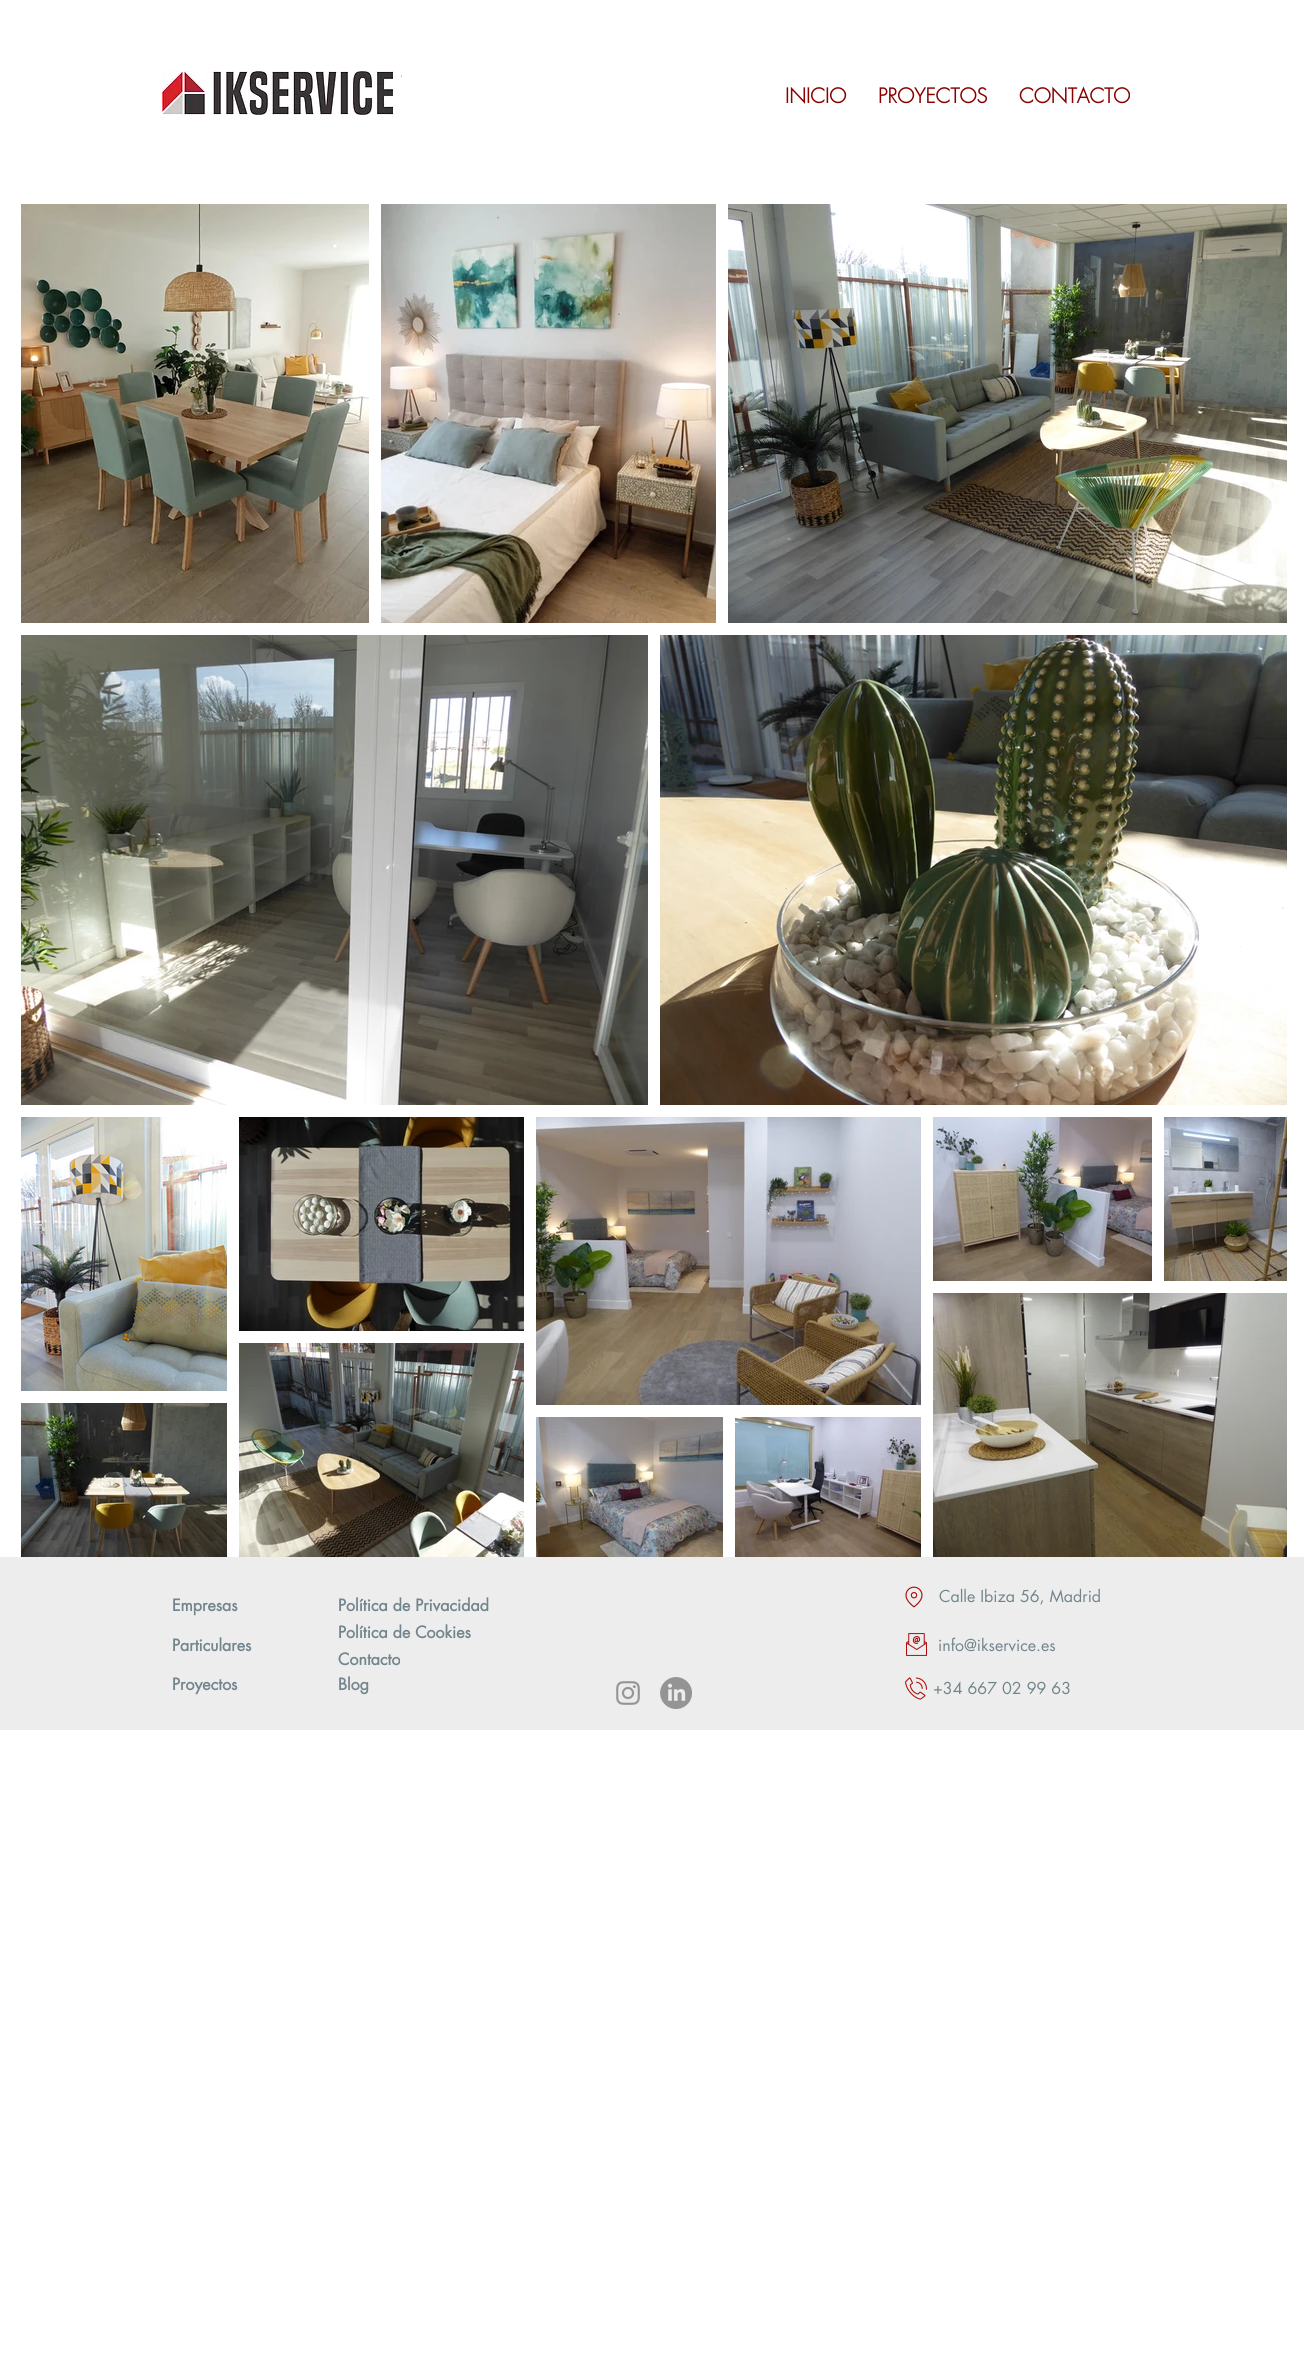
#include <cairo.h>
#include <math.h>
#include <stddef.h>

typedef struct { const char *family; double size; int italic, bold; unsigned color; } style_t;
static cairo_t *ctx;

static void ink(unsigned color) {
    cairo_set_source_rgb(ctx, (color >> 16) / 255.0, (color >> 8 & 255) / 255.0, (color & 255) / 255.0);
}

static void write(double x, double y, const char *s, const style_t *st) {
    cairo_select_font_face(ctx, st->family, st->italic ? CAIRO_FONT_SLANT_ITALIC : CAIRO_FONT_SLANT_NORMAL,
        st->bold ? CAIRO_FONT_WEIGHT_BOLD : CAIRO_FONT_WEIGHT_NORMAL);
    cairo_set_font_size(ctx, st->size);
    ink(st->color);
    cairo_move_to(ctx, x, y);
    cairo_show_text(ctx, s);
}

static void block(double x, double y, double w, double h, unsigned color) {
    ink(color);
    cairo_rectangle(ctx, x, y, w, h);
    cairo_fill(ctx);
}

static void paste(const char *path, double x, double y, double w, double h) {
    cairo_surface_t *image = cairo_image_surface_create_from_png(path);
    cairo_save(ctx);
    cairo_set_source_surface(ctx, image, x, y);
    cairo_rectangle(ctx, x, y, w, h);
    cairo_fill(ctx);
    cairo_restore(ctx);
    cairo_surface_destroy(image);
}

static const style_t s1 = {"futura", 20, 0, 1, 0x8b0000};
static const style_t s2 = {"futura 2", 16, 0, 1, 0x72858c};
static const style_t s3 = {"futura", 16, 0, 0, 0x72858c};

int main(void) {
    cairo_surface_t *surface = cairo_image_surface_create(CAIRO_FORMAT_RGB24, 1304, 2354);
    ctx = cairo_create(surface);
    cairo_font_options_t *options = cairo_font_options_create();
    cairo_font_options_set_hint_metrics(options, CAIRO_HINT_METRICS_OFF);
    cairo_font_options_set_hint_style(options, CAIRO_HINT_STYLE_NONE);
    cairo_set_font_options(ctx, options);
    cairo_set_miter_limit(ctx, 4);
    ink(0xffffff);
    cairo_paint(ctx);
    paste("pic1.png", 162, 71, 240, 44);
    write(785, 103, "INICIO", &s1);
    write(878, 103, "PROYECTOS", &s1);
    write(1019, 103, "CONTACTO", &s1);
    paste("pic2.png", 21, 204, 348, 419);
    paste("pic3.png", 381, 204, 335, 419);
    paste("pic4.png", 728, 204, 559, 419);
    paste("pic5.png", 21, 635, 627, 470);
    paste("pic6.png", 660, 635, 627, 470);
    paste("pic7.png", 21, 1117, 206, 274);
    paste("pic8.png", 239, 1117, 285, 214);
    paste("pic9.png", 536, 1117, 385, 288);
    paste("pic10.png", 933, 1117, 219, 164);
    paste("pic11.png", 1164, 1117, 123, 164);
    paste("pic12.png", 21, 1403, 206, 154);
    paste("pic13.png", 239, 1343, 285, 214);
    paste("pic14.png", 536, 1417, 187, 140);
    paste("pic15.png", 735, 1417, 186, 140);
    paste("pic16.png", 933, 1293, 354, 264);
    block(0, 1557, 1304, 173, 0xededed);
    write(172, 1611, "Empresas", &s2);
    write(338, 1611, "Política de Privacidad", &s2);
    paste("pic17.png", 905, 1586, 18, 22);
    write(939, 1602, "Calle Ibiza 56, Madrid", &s3);
    write(338, 1638, "Política de Cookies", &s2);
    write(172, 1651, "Particulares", &s2);
    paste("pic18.png", 906, 1633, 21, 23);
    write(938, 1651, "info@ikservice.es", &s3);
    write(338, 1665, "Contacto", &s2);
    write(172, 1690, "Proyectos", &s2);
    write(338, 1690, "Blog", &s2);
    paste("pic19.png", 616, 1681, 24, 24);
    paste("pic20.png", 660, 1677, 32, 32);
    paste("pic21.png", 905, 1677, 22, 23);
    write(933, 1694, "+34 667 02 99 63", &s3);
    cairo_surface_write_to_png(surface, "screenshot.png");
    cairo_font_options_destroy(options);
    cairo_destroy(ctx);
    cairo_surface_destroy(surface);
    return 0;
}
